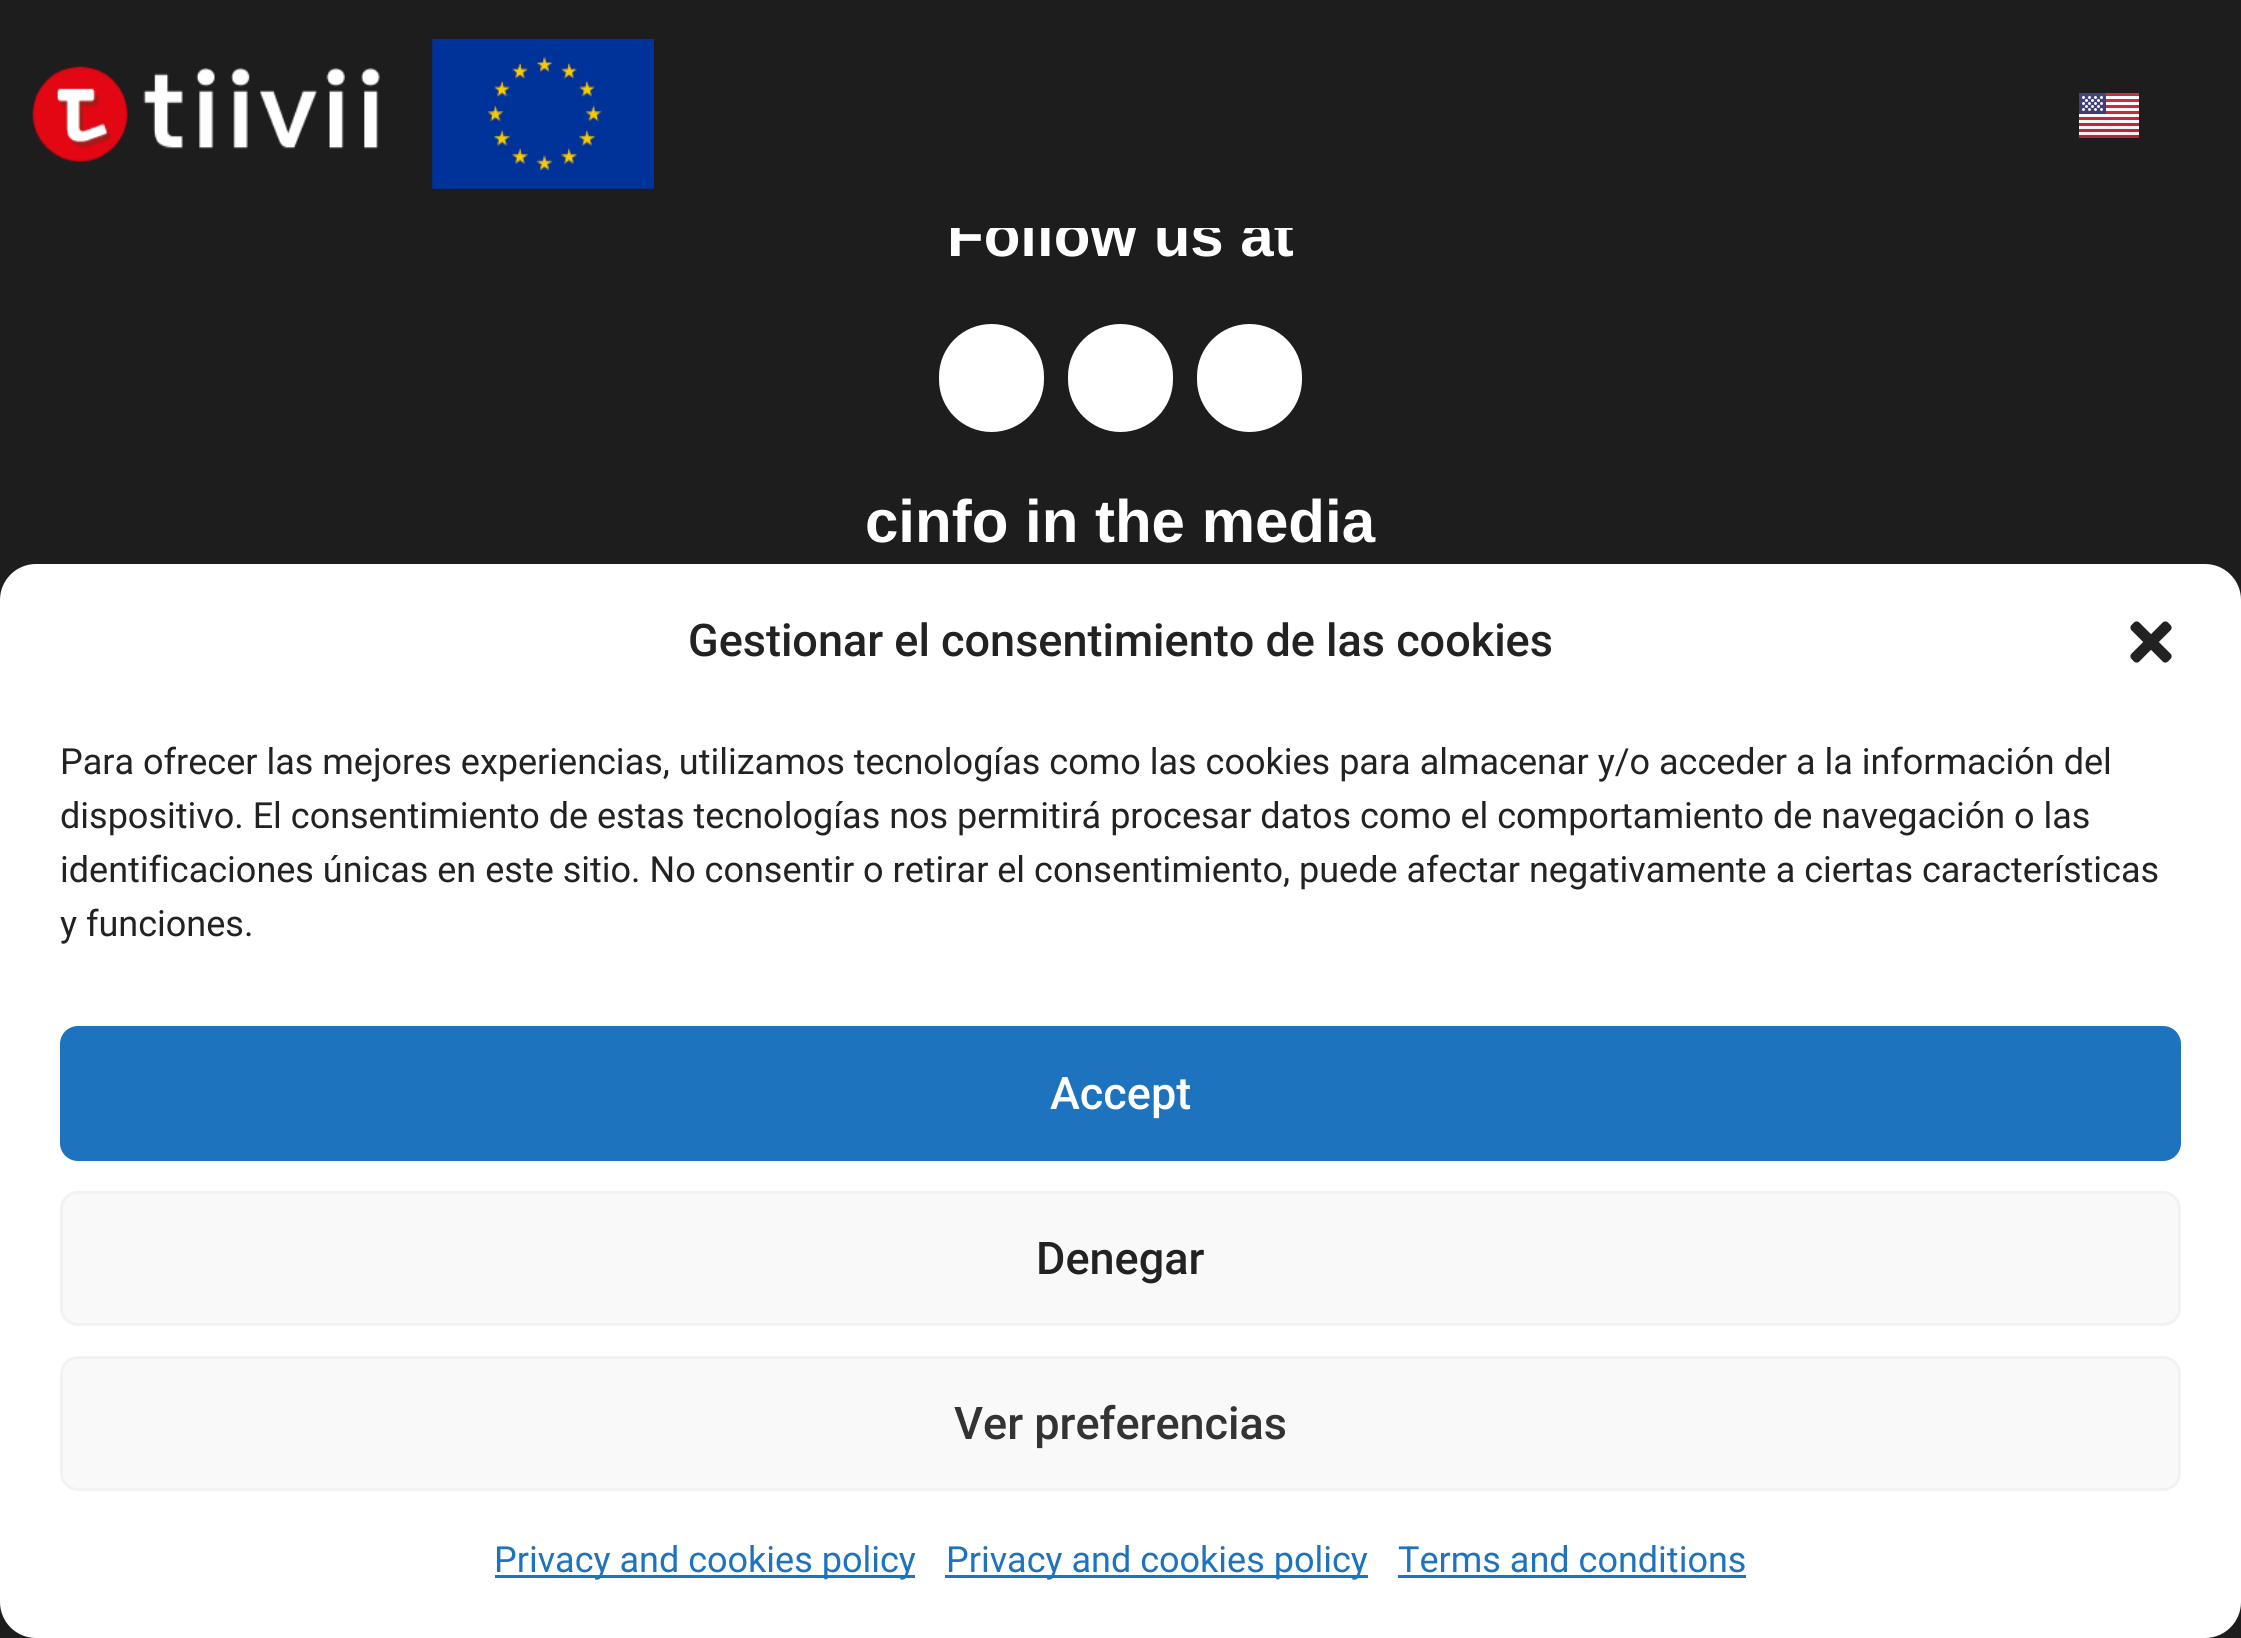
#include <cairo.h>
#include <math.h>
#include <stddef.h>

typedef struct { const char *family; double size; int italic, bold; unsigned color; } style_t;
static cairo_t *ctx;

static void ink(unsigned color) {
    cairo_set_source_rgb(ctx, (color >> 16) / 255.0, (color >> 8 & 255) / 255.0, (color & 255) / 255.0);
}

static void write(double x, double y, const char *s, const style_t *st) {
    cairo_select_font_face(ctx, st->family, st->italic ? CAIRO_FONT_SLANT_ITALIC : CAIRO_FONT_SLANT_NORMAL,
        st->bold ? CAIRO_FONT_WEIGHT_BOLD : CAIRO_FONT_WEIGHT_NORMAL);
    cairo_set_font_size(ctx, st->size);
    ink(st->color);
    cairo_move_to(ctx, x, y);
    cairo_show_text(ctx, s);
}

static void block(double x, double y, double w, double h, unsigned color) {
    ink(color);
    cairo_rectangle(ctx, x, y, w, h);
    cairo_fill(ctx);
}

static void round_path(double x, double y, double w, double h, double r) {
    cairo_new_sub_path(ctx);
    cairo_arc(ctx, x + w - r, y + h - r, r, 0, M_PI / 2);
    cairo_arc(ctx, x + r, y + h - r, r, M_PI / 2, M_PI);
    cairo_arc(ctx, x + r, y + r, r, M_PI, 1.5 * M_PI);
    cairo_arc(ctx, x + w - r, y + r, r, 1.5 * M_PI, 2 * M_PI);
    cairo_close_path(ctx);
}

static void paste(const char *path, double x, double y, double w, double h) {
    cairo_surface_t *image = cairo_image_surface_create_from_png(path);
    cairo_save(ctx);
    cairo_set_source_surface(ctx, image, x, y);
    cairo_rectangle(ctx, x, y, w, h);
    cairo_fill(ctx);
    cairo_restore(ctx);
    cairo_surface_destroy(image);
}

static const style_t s1 = {"Liberation Sans", 60, 0, 1, 0xffffff};
static const style_t s2 = {"Roboto Medium", 45, 0, 0, 0x222222};
static const style_t s3 = {"Roboto", 36, 0, 0, 0x222222};
static const style_t s4 = {"Roboto Medium", 45, 0, 0, 0xffffff};
static const style_t s5 = {"Roboto Medium", 45, 0, 0, 0x333333};
static const style_t s6 = {"Roboto", 36, 0, 0, 0x1e73be};

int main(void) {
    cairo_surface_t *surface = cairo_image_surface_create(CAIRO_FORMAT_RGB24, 2241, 1638);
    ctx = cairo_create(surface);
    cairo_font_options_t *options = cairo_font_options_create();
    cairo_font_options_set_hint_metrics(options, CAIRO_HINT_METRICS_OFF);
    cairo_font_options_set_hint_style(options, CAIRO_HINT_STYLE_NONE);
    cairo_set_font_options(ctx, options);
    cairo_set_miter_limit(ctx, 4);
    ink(0x1d1d1d);
    cairo_paint(ctx);
    write(947, 256, "Follow us at", &s1);
    block(951, 212, 342, 16, 0x1d1d1d);
    paste("pic1.png", 32, 39, 622, 150);
    paste("pic2.png", 2079, 93, 60, 45);
    ink(0xffffff);
    round_path(939, 324, 105, 108, 52.5);
    cairo_fill(ctx);
    round_path(1068, 324, 105, 108, 52.5);
    cairo_fill(ctx);
    round_path(1197, 324, 105, 108, 52.5);
    cairo_fill(ctx);
    write(865, 542, "cinfo in the media", &s1);
    round_path(0, 564, 2241, 1074, 36);
    cairo_fill(ctx);
    write(688, 656, "Gestionar el consentimiento de las cookies", &s2);
    paste("pic3.png", 2130, 621, 42, 42);
    write(60, 774, "Para ofrecer las mejores experiencias, utilizamos tecnologías como las cookies para almacenar y/o acceder a la información del", &s3);
    write(60, 828, "dispositivo. El consentimiento de estas tecnologías nos permitirá procesar datos como el comportamiento de navegación o las", &s3);
    write(60, 882, "identificaciones únicas en este sitio. No consentir o retirar el consentimiento, puede afectar negativamente a ciertas características", &s3);
    write(60, 936, "y funciones.", &s3);
    ink(0x1e73be);
    round_path(61.5, 1027.5, 2118, 132, 16.5);
    cairo_fill_preserve(ctx);
    cairo_set_line_width(ctx, 3);
    cairo_stroke(ctx);
    write(1050, 1109, "Accept", &s4);
    ink(0xf9f9f9);
    round_path(61.5, 1192.5, 2118, 132, 16.5);
    cairo_fill_preserve(ctx);
    ink(0xf2f2f2);
    cairo_stroke(ctx);
    write(1036, 1274, "Denegar", &s2);
    ink(0xf9f9f9);
    round_path(61.5, 1357.5, 2118, 132, 16.5);
    cairo_fill_preserve(ctx);
    ink(0xf2f2f2);
    cairo_stroke(ctx);
    write(954, 1439, "Ver preferencias", &s5);
    block(495, 1575, 420, 3, 0x1e73be);
    write(494, 1572, "Privacy and cookies policy", &s6);
    block(945, 1575, 423, 3, 0x1e73be);
    write(946, 1572, "Privacy and cookies policy", &s6);
    write(1398, 1572, "Terms and conditions", &s6);
    block(1398, 1575, 348, 3, 0x1e73be);
    cairo_surface_write_to_png(surface, "screenshot.png");
    cairo_font_options_destroy(options);
    cairo_destroy(ctx);
    cairo_surface_destroy(surface);
    return 0;
}
